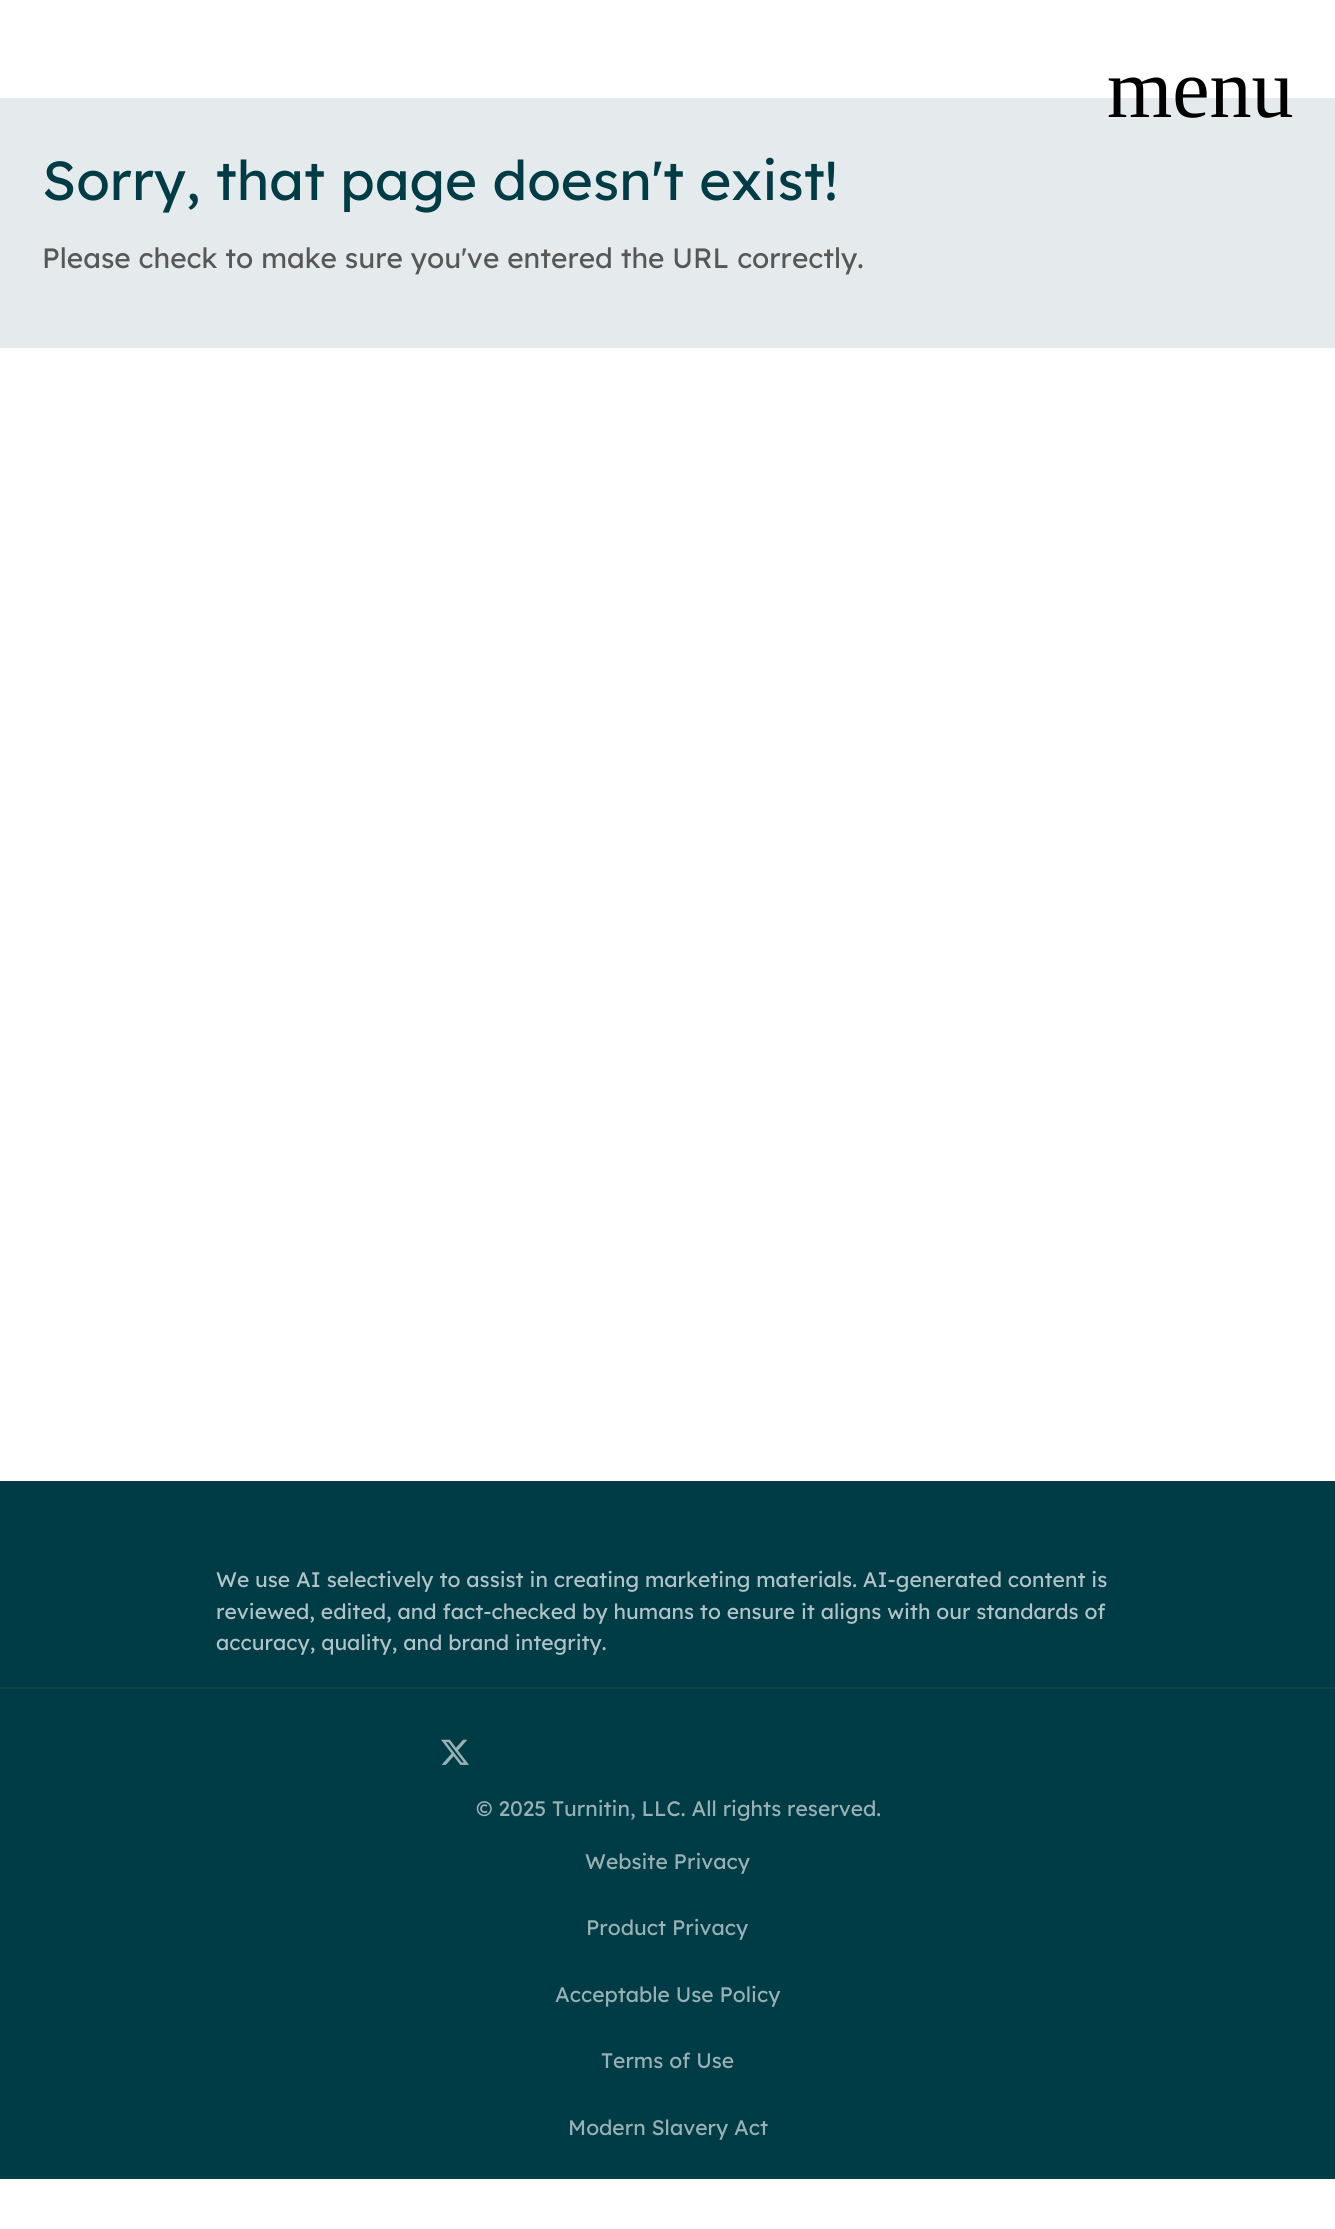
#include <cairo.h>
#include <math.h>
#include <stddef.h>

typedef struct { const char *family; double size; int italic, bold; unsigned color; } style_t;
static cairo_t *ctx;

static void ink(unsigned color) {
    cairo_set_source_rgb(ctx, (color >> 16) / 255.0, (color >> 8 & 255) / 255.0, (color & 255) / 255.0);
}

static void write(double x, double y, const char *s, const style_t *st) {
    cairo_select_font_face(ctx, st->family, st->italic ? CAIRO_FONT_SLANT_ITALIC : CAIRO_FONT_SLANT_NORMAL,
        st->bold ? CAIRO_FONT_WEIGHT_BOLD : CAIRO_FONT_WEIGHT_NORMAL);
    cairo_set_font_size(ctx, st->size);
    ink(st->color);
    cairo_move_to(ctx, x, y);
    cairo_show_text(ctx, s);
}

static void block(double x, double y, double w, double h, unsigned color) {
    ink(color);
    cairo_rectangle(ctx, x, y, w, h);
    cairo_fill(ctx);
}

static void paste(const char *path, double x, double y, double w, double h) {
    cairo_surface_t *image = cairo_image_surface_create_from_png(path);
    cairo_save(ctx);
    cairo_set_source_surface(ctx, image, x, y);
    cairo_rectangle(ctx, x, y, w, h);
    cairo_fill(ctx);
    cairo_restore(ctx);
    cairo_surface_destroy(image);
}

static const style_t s1 = {"Liberation Serif", 84, 0, 0, 0x000000};
static const style_t s2 = {"Lexend Deca", 54.75, 0, 0, 0x003c46};
static const style_t s3 = {"Lexend Deca", 28, 0, 0, 0x575757};
static const style_t s4 = {"Lexend Deca", 21, 0, 0, 0xb2c4c7};
static const style_t s5 = {"Lexend Deca", 21, 0, 0, 0x99b1b5};

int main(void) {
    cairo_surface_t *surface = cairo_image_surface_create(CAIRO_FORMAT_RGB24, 1335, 2229);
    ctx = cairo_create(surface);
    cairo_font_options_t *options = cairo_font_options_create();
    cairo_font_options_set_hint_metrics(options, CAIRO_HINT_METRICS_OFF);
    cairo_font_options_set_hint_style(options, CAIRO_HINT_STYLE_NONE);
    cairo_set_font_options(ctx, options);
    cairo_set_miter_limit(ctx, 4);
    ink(0xffffff);
    cairo_paint(ctx);
    block(0, 98, 1335, 250, 0xe5ebec);
    write(1107, 117, "menu", &s1);
    write(42, 200, "Sorry, that page doesn't exist!", &s2);
    write(42, 268, "Please check to make sure you've entered the URL correctly.", &s3);
    block(0, 1481, 1335, 698, 0x003c46);
    write(216, 1587, "We use AI selectively to assist in creating marketing materials. AI-generated content is", &s4);
    write(216, 1619, "reviewed, edited, and fact-checked by humans to ensure it aligns with our standards of", &s4);
    write(216, 1650, "accuracy, quality, and brand integrity.", &s4);
    block(0, 1687, 1335, 2, 0x16434a);
    paste("pic1.png", 441, 1739, 28, 26);
    write(476, 1816, "© 2025 Turnitin, LLC. All rights reserved.", &s5);
    write(585, 1869, "Website Privacy", &s5);
    write(586, 1935, "Product Privacy", &s5);
    write(555, 2002, "Acceptable Use Policy", &s5);
    write(601, 2068, "Terms of Use", &s5);
    write(568, 2135, "Modern Slavery Act", &s5);
    cairo_surface_write_to_png(surface, "screenshot.png");
    cairo_font_options_destroy(options);
    cairo_destroy(ctx);
    cairo_surface_destroy(surface);
    return 0;
}
